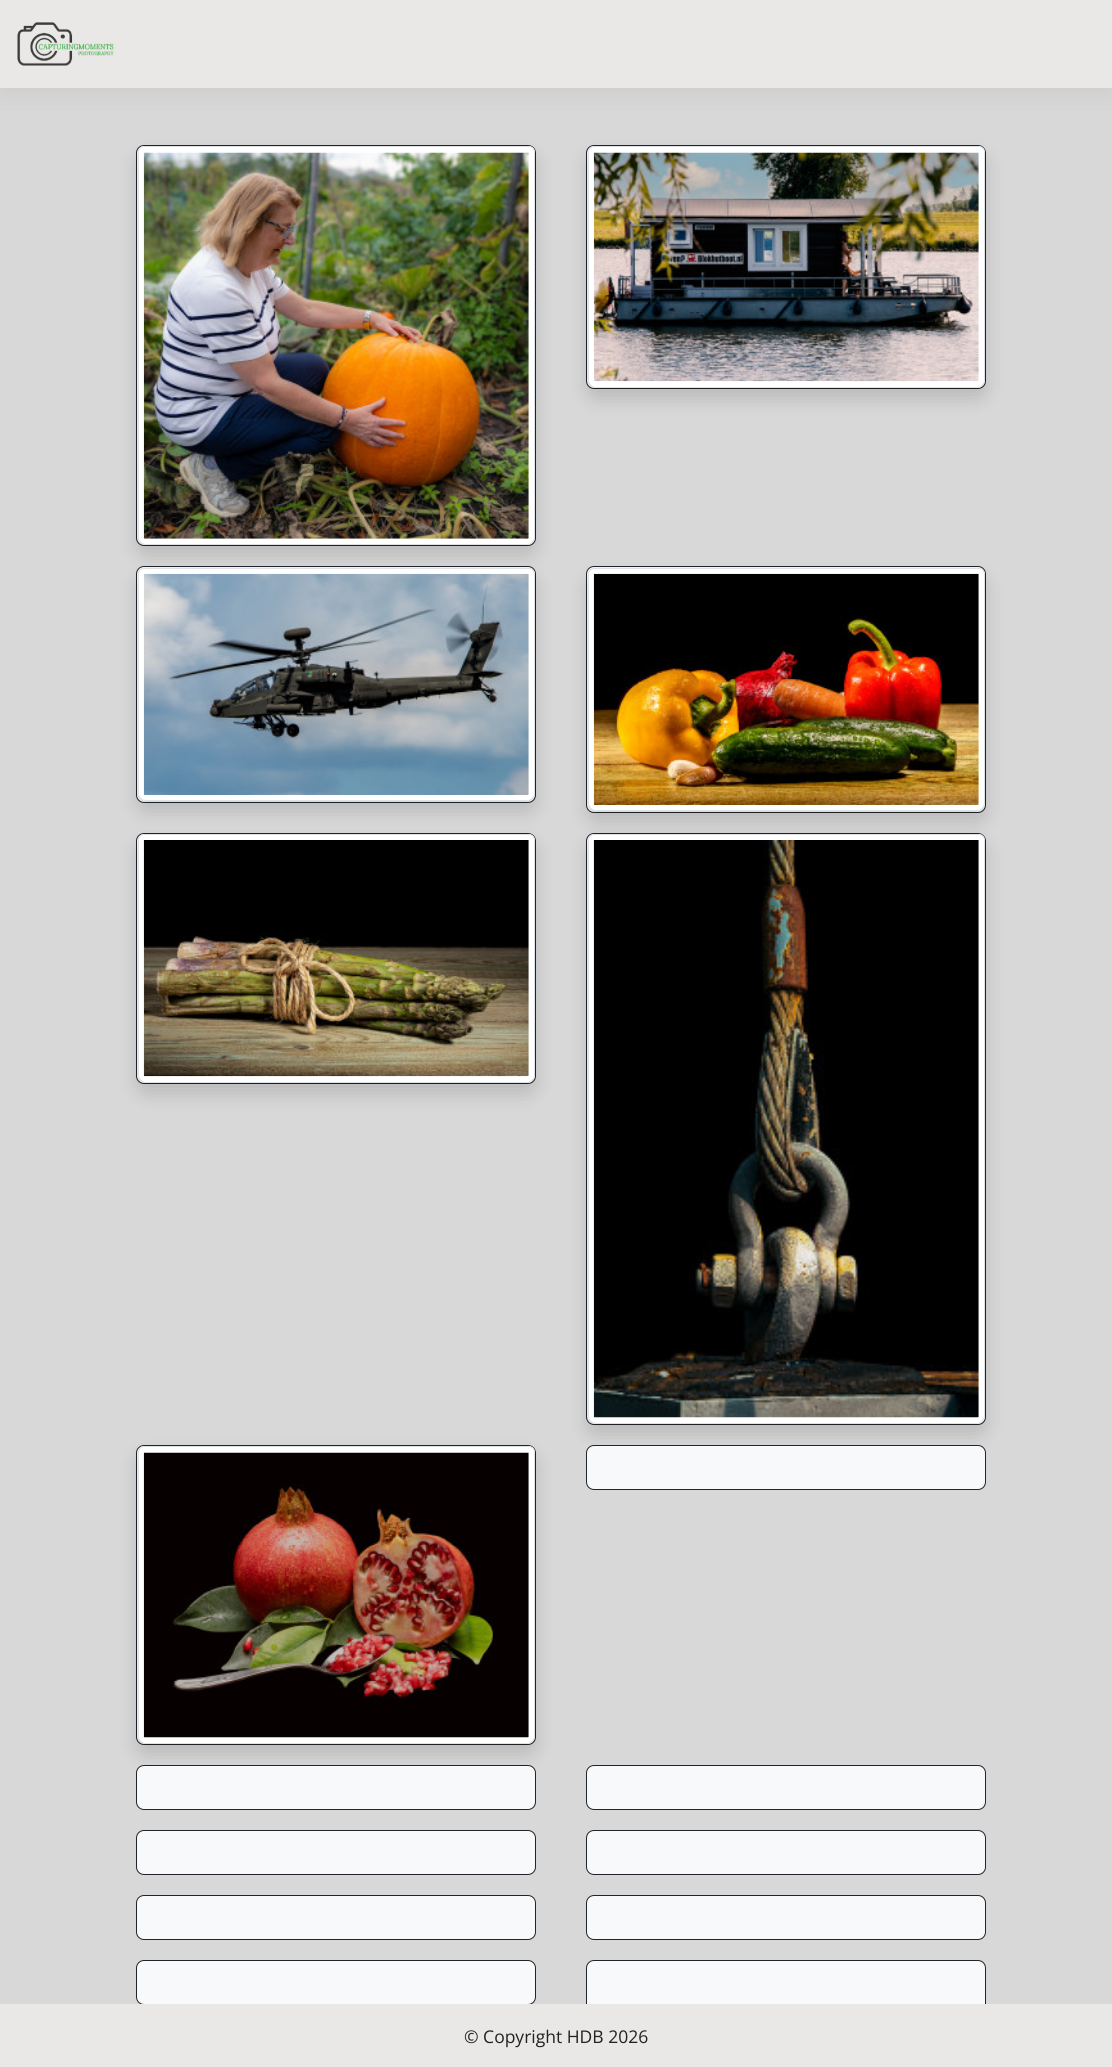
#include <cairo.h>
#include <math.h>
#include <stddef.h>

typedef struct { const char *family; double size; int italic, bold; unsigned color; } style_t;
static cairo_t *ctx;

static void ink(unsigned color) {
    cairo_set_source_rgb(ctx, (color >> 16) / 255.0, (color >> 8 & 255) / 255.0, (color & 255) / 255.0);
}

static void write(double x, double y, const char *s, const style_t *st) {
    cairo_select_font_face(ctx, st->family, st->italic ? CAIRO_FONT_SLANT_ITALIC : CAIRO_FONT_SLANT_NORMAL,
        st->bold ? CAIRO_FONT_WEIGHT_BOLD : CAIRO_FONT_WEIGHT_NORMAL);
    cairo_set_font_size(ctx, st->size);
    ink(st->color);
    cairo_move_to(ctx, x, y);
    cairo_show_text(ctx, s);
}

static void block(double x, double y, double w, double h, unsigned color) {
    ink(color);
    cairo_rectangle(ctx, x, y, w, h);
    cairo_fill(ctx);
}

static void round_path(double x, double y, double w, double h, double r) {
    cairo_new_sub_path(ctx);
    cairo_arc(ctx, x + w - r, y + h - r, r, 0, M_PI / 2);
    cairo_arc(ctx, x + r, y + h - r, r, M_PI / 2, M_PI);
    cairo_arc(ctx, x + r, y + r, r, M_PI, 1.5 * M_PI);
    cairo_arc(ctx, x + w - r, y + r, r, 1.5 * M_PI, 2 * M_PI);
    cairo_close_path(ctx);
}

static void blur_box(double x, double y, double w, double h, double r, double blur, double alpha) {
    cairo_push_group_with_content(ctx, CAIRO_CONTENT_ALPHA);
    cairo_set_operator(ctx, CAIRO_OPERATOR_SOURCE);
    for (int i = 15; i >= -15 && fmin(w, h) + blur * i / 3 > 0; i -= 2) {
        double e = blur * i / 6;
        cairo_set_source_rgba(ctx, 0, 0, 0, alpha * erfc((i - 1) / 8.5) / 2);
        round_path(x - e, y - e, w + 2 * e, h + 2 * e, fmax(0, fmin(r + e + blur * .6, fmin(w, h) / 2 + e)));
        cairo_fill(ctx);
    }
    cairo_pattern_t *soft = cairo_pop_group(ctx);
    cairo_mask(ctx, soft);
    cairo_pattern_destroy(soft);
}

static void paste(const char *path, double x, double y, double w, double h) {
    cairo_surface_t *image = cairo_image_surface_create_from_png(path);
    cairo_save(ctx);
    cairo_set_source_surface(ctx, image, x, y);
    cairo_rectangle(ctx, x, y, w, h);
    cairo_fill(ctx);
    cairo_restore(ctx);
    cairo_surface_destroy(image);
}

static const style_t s1 = {"Open Sans", 17.5, 0, 0, 0x222222};

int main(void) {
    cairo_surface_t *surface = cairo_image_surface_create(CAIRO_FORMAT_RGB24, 1112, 2067);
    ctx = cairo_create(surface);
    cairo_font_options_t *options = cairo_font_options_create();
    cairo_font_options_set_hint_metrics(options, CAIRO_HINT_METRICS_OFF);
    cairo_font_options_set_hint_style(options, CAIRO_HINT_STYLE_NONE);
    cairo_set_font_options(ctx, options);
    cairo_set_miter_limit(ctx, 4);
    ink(0xd8d8d8);
    cairo_paint(ctx);
    ink(0x000000);
    blur_box(0, 0, 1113, 88, 0, 15.5, 0.08);
    block(0, 0, 1112, 88, 0xe9e8e6);
    paste("pic1.png", 17, 22, 97, 44);
    ink(0xf8f9fa);
    round_path(136.5, 145.5, 399, 400, 7.5);
    cairo_fill_preserve(ctx);
    ink(0x212529);
    cairo_set_line_width(ctx, 1);
    cairo_stroke(ctx);
    ink(0x000000);
    blur_box(138, 156, 397, 399, 8, 10, 0.15);
    ink(0xffffff);
    cairo_new_path(ctx);
    cairo_move_to(ctx, 144, 146.5);
    cairo_line_to(ctx, 529, 146.5);
    cairo_curve_to(ctx, 532, 146.5, 534.5, 149, 534.5, 152);
    cairo_line_to(ctx, 534.5, 537);
    cairo_curve_to(ctx, 534.5, 541, 531, 544.5, 527, 544.5);
    cairo_line_to(ctx, 146, 544.5);
    cairo_curve_to(ctx, 142, 544.5, 138.5, 541, 138.5, 537);
    cairo_line_to(ctx, 138.5, 152);
    cairo_curve_to(ctx, 138.5, 149, 141, 146.5, 144, 146.5);
    cairo_close_path(ctx);
    cairo_fill_preserve(ctx);
    ink(0xdee2e6);
    cairo_stroke(ctx);
    paste("pic2.png", 143, 152, 386, 387);
    ink(0xf8f9fa);
    round_path(586.5, 145.5, 399, 243, 7.5);
    cairo_fill_preserve(ctx);
    ink(0x212529);
    cairo_stroke(ctx);
    ink(0x000000);
    blur_box(588, 156, 397, 242, 8, 10, 0.15);
    ink(0xffffff);
    cairo_new_path(ctx);
    cairo_move_to(ctx, 594, 146.5);
    cairo_line_to(ctx, 979, 146.5);
    cairo_curve_to(ctx, 982, 146.5, 984.5, 149, 984.5, 152);
    cairo_line_to(ctx, 984.5, 380);
    cairo_curve_to(ctx, 984.5, 384, 981, 387.5, 977, 387.5);
    cairo_line_to(ctx, 596, 387.5);
    cairo_curve_to(ctx, 592, 387.5, 588.5, 384, 588.5, 380);
    cairo_line_to(ctx, 588.5, 152);
    cairo_curve_to(ctx, 588.5, 149, 591, 146.5, 594, 146.5);
    cairo_close_path(ctx);
    cairo_fill_preserve(ctx);
    ink(0xdee2e6);
    cairo_stroke(ctx);
    paste("pic3.png", 593, 152, 386, 230);
    ink(0xf8f9fa);
    round_path(136.5, 566.5, 399, 236, 7.5);
    cairo_fill_preserve(ctx);
    ink(0x212529);
    cairo_stroke(ctx);
    ink(0x000000);
    blur_box(138, 578, 397, 233, 8, 10, 0.15);
    ink(0xffffff);
    cairo_new_path(ctx);
    cairo_move_to(ctx, 144, 568.5);
    cairo_line_to(ctx, 529, 568.5);
    cairo_curve_to(ctx, 532, 568.5, 534.5, 571, 534.5, 574);
    cairo_line_to(ctx, 534.5, 793);
    cairo_curve_to(ctx, 534.5, 797, 531, 800.5, 527, 800.5);
    cairo_line_to(ctx, 146, 800.5);
    cairo_curve_to(ctx, 142, 800.5, 138.5, 797, 138.5, 793);
    cairo_line_to(ctx, 138.5, 574);
    cairo_curve_to(ctx, 138.5, 571, 141, 568.5, 144, 568.5);
    cairo_close_path(ctx);
    cairo_fill_preserve(ctx);
    ink(0xdee2e6);
    cairo_stroke(ctx);
    paste("pic4.png", 143, 573, 386, 222);
    ink(0xf8f9fa);
    round_path(586.5, 566.5, 399, 246, 7.5);
    cairo_fill_preserve(ctx);
    ink(0x212529);
    cairo_stroke(ctx);
    ink(0x000000);
    blur_box(588, 578, 397, 243, 8, 10, 0.15);
    ink(0xffffff);
    cairo_new_path(ctx);
    cairo_move_to(ctx, 594, 568.5);
    cairo_line_to(ctx, 979, 568.5);
    cairo_curve_to(ctx, 982, 568.5, 984.5, 571, 984.5, 574);
    cairo_line_to(ctx, 984.5, 803);
    cairo_curve_to(ctx, 984.5, 807, 981, 810.5, 977, 810.5);
    cairo_line_to(ctx, 596, 810.5);
    cairo_curve_to(ctx, 592, 810.5, 588.5, 807, 588.5, 803);
    cairo_line_to(ctx, 588.5, 574);
    cairo_curve_to(ctx, 588.5, 571, 591, 568.5, 594, 568.5);
    cairo_close_path(ctx);
    cairo_fill_preserve(ctx);
    ink(0xdee2e6);
    cairo_stroke(ctx);
    paste("pic5.png", 593, 573, 386, 232);
    ink(0xf8f9fa);
    round_path(136.5, 833.5, 399, 250, 7.5);
    cairo_fill_preserve(ctx);
    ink(0x212529);
    cairo_stroke(ctx);
    ink(0x000000);
    blur_box(138, 844, 397, 249, 8, 10, 0.15);
    ink(0xffffff);
    cairo_new_path(ctx);
    cairo_move_to(ctx, 144, 834.5);
    cairo_line_to(ctx, 529, 834.5);
    cairo_curve_to(ctx, 532, 834.5, 534.5, 837, 534.5, 840);
    cairo_line_to(ctx, 534.5, 1075);
    cairo_curve_to(ctx, 534.5, 1079, 531, 1082.5, 527, 1082.5);
    cairo_line_to(ctx, 146, 1082.5);
    cairo_curve_to(ctx, 142, 1082.5, 138.5, 1079, 138.5, 1075);
    cairo_line_to(ctx, 138.5, 840);
    cairo_curve_to(ctx, 138.5, 837, 141, 834.5, 144, 834.5);
    cairo_close_path(ctx);
    cairo_fill_preserve(ctx);
    ink(0xdee2e6);
    cairo_stroke(ctx);
    paste("pic6.png", 143, 840, 386, 237);
    ink(0xf8f9fa);
    round_path(586.5, 833.5, 399, 591, 7.5);
    cairo_fill_preserve(ctx);
    ink(0x212529);
    cairo_stroke(ctx);
    ink(0x000000);
    blur_box(588, 844, 397, 590, 8, 10, 0.15);
    ink(0xffffff);
    cairo_new_path(ctx);
    cairo_move_to(ctx, 594, 834.5);
    cairo_line_to(ctx, 979, 834.5);
    cairo_curve_to(ctx, 982, 834.5, 984.5, 837, 984.5, 840);
    cairo_line_to(ctx, 984.5, 1416);
    cairo_curve_to(ctx, 984.5, 1420, 981, 1423.5, 977, 1423.5);
    cairo_line_to(ctx, 596, 1423.5);
    cairo_curve_to(ctx, 592, 1423.5, 588.5, 1420, 588.5, 1416);
    cairo_line_to(ctx, 588.5, 840);
    cairo_curve_to(ctx, 588.5, 837, 591, 834.5, 594, 834.5);
    cairo_close_path(ctx);
    cairo_fill_preserve(ctx);
    ink(0xdee2e6);
    cairo_stroke(ctx);
    paste("pic7.png", 593, 840, 386, 578);
    ink(0xf8f9fa);
    round_path(136.5, 1445.5, 399, 299, 7.5);
    cairo_fill_preserve(ctx);
    ink(0x212529);
    cairo_stroke(ctx);
    ink(0x000000);
    blur_box(138, 1456, 397, 298, 8, 10, 0.15);
    ink(0xffffff);
    cairo_new_path(ctx);
    cairo_move_to(ctx, 144, 1446.5);
    cairo_line_to(ctx, 529, 1446.5);
    cairo_curve_to(ctx, 532, 1446.5, 534.5, 1449, 534.5, 1452);
    cairo_line_to(ctx, 534.5, 1736);
    cairo_curve_to(ctx, 534.5, 1740, 531, 1743.5, 527, 1743.5);
    cairo_line_to(ctx, 146, 1743.5);
    cairo_curve_to(ctx, 142, 1743.5, 138.5, 1740, 138.5, 1736);
    cairo_line_to(ctx, 138.5, 1452);
    cairo_curve_to(ctx, 138.5, 1449, 141, 1446.5, 144, 1446.5);
    cairo_close_path(ctx);
    cairo_fill_preserve(ctx);
    ink(0xdee2e6);
    cairo_stroke(ctx);
    paste("pic8.png", 143, 1452, 386, 286);
    ink(0xf8f9fa);
    round_path(586.5, 1445.5, 399, 44, 7.5);
    cairo_fill_preserve(ctx);
    ink(0x212529);
    cairo_stroke(ctx);
    ink(0xf8f9fa);
    round_path(136.5, 1765.5, 399, 44, 7.5);
    cairo_fill_preserve(ctx);
    ink(0x212529);
    cairo_stroke(ctx);
    ink(0xf8f9fa);
    round_path(586.5, 1765.5, 399, 44, 7.5);
    cairo_fill_preserve(ctx);
    ink(0x212529);
    cairo_stroke(ctx);
    ink(0xf8f9fa);
    round_path(136.5, 1830.5, 399, 44, 7.5);
    cairo_fill_preserve(ctx);
    ink(0x212529);
    cairo_stroke(ctx);
    ink(0xf8f9fa);
    round_path(586.5, 1830.5, 399, 44, 7.5);
    cairo_fill_preserve(ctx);
    ink(0x212529);
    cairo_stroke(ctx);
    ink(0xf8f9fa);
    round_path(136.5, 1895.5, 399, 44, 7.5);
    cairo_fill_preserve(ctx);
    ink(0x212529);
    cairo_stroke(ctx);
    ink(0xf8f9fa);
    round_path(586.5, 1895.5, 399, 44, 7.5);
    cairo_fill_preserve(ctx);
    ink(0x212529);
    cairo_stroke(ctx);
    ink(0xf8f9fa);
    round_path(136.5, 1960.5, 399, 44, 7.5);
    cairo_fill_preserve(ctx);
    ink(0x212529);
    cairo_stroke(ctx);
    ink(0xf8f9fa);
    round_path(586.5, 1960.5, 399, 74, 7.5);
    cairo_fill_preserve(ctx);
    ink(0x212529);
    cairo_stroke(ctx);
    block(0, 2004, 1112, 63, 0xe9e8e6);
    write(464, 2043, "© Copyright HDB 2026", &s1);
    cairo_surface_write_to_png(surface, "screenshot.png");
    cairo_font_options_destroy(options);
    cairo_destroy(ctx);
    cairo_surface_destroy(surface);
    return 0;
}
